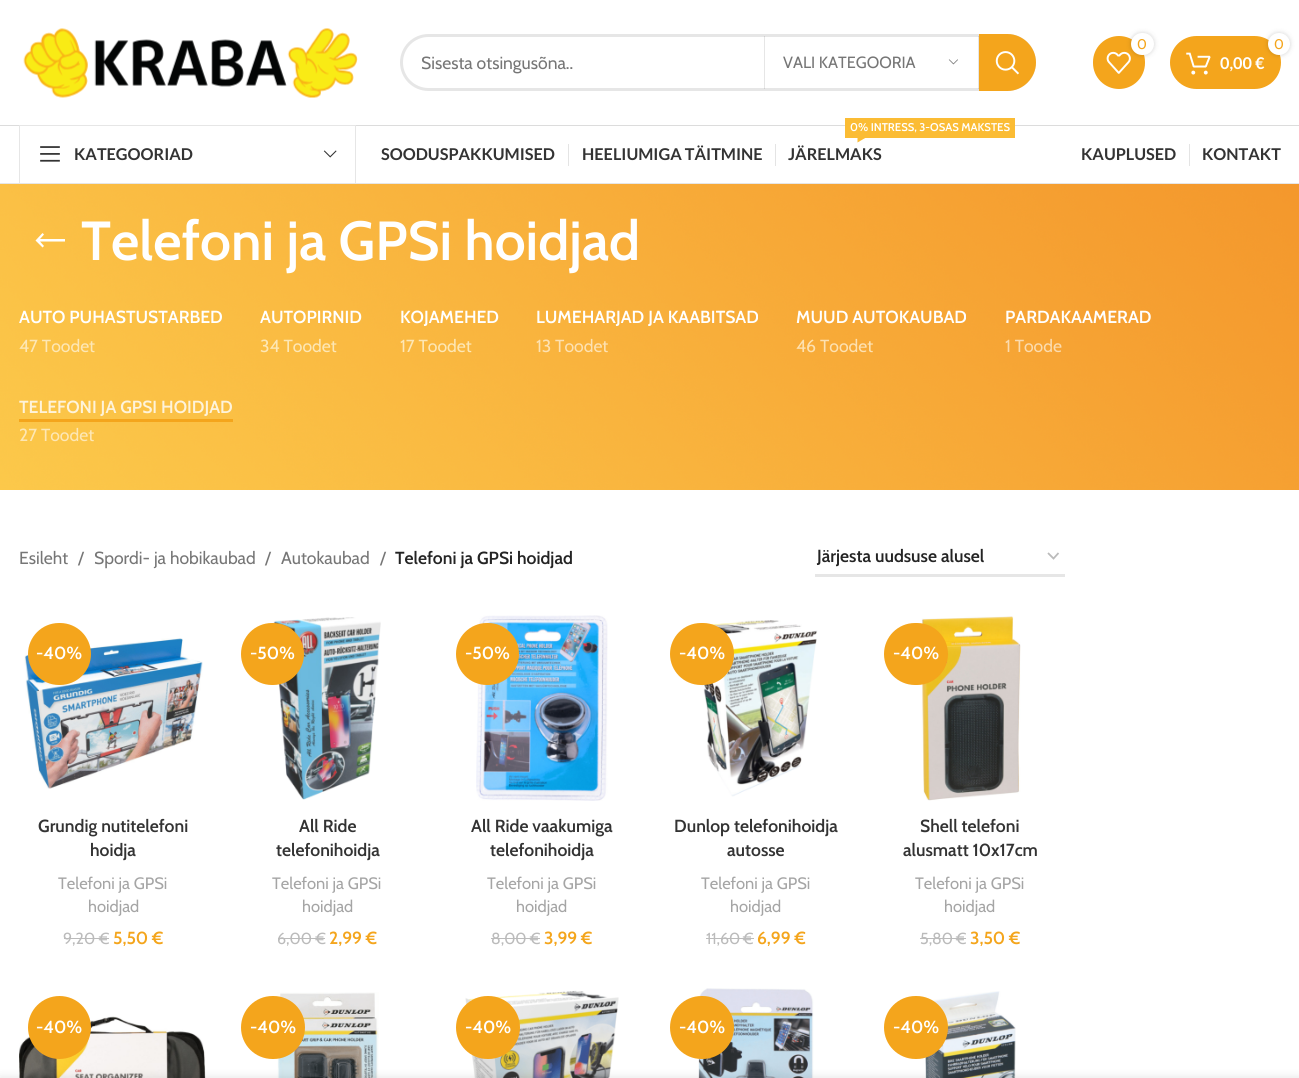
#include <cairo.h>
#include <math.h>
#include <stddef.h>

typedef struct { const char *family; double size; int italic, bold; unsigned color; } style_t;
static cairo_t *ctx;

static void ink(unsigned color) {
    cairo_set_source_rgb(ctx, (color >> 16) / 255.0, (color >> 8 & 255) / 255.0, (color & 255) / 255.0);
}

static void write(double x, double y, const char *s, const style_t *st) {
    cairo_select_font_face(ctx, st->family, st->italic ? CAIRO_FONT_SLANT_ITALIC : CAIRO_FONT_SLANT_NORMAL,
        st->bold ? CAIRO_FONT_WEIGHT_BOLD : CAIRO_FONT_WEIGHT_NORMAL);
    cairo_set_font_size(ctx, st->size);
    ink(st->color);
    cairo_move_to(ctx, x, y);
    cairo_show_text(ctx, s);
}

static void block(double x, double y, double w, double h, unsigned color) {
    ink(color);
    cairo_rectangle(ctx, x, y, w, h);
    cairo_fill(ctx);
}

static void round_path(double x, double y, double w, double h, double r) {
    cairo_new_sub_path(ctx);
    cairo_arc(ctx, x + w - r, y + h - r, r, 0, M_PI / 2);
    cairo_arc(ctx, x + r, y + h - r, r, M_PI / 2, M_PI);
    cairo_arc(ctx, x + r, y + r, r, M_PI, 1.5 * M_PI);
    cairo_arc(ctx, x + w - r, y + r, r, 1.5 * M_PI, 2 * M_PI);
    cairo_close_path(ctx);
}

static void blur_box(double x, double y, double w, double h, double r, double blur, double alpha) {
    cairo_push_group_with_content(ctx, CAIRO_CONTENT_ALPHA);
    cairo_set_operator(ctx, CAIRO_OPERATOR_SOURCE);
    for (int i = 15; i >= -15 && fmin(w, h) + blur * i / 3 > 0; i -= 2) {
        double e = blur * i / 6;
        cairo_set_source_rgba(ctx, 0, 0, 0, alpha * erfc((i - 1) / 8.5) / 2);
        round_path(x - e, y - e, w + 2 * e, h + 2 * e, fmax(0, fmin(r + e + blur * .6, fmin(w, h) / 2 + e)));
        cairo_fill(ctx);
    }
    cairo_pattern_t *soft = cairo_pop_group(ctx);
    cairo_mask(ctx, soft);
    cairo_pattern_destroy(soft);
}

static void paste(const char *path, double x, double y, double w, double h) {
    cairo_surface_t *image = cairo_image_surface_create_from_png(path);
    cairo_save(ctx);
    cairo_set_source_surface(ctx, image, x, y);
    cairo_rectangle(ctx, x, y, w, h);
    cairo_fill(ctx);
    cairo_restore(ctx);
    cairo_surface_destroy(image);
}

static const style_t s1 = {"Cabin", 17.5, 0, 0, 0x767676};
static const style_t s2 = {"Cabin", 16.25, 0, 0, 0x767676};
static const style_t s3 = {"Cabin", 14, 0, 0, 0xf4a51c};
static const style_t s4 = {"Lato", 16.25, 0, 1, 0xffffff};
static const style_t s5 = {"Lato", 16.25, 0, 1, 0x333333};
static const style_t s6 = {"Cabin SemiBold", 11.25, 0, 0, 0xffffff};
static const style_t s7 = {"Cabin SemiBold", 55, 0, 0, 0xffffff};
static const style_t s8 = {"Cabin SemiBold", 17.5, 0, 0, 0xffffff};
static const style_t s9 = {"Cabin", 17.5, 0, 0, 0xfde7b5};
static const style_t s10 = {"Cabin", 17.5, 0, 0, 0xfde1b1};
static const style_t s11 = {"Cabin", 17.5, 0, 0, 0xfbdbae};
static const style_t s12 = {"Cabin SemiBold", 17.5, 0, 0, 0xfef3da};
static const style_t s13 = {"Cabin SemiBold", 17.5, 0, 0, 0x242424};
static const style_t s14 = {"Cabin SemiBold", 17.5, 0, 0, 0x333333};
static const style_t s15 = {"Cabin", 16.5, 0, 0, 0xa5a5a5};
static const style_t s16 = {"Cabin", 16, 0, 0, 0xbbbbbb};
static const style_t s17 = {"Cabin SemiBold", 17.5, 0, 0, 0xf4a51c};

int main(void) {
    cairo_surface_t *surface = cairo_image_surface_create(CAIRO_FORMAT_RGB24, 1299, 1078);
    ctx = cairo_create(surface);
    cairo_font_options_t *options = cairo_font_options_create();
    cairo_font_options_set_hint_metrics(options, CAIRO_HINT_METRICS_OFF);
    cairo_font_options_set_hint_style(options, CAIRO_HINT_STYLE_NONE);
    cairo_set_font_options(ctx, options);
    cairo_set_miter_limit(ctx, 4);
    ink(0xffffff);
    cairo_paint(ctx);
    block(0, 125, 1299, 1, 0xdcdcdc);
    paste("pic1.png", 23, 28, 335, 70);
    round_path(401.5, 35.5, 633, 54, 27);
    ink(0xe6e6e6);
    cairo_set_line_width(ctx, 3);
    cairo_stroke(ctx);
    write(421, 69, "Sisesta otsingusõna..", &s1);
    cairo_set_source_rgba(ctx, 0, 0, 0, 0.1);
    cairo_rectangle(ctx, 978, 36, 1, 53);
    cairo_fill(ctx);
    cairo_rectangle(ctx, 764, 36, 1, 53);
    cairo_fill(ctx);
    write(783, 68, "VALI KATEGOORIA", &s2);
    paste("pic2.png", 948, 59, 10, 6);
    ink(0xf4a51c);
    cairo_new_path(ctx);
    cairo_move_to(ctx, 979, 34);
    cairo_line_to(ctx, 1007.5, 34);
    cairo_curve_to(ctx, 1023, 34, 1036, 47, 1036, 62.5);
    cairo_curve_to(ctx, 1036, 78, 1023, 91, 1007.5, 91);
    cairo_line_to(ctx, 979, 91);
    cairo_close_path(ctx);
    cairo_fill(ctx);
    paste("pic3.png", 995, 51, 24, 24);
    round_path(1093, 36, 52, 53, 26);
    cairo_fill(ctx);
    paste("pic4.png", 1106, 51, 25, 23);
    ink(0x000000);
    blur_box(1131, 33, 23, 22, 11, 2.5, 0.17);
    ink(0xffffff);
    round_path(1131, 33, 23, 22, 11);
    cairo_fill(ctx);
    write(1137, 49, "0", &s3);
    round_path(1170, 36, 111, 53, 26.5);
    cairo_fill(ctx);
    ink(0x000000);
    blur_box(1268, 33, 22, 22, 11, 2.5, 0.17);
    ink(0xffffff);
    cairo_arc(ctx, 1279, 44, 11, 0, 2 * M_PI);
    cairo_fill(ctx);
    write(1274, 49, "0", &s3);
    paste("pic5.png", 1186, 52, 25, 23);
    write(1220, 69, "0,00 €", &s4);
    block(0, 183, 1299, 1, 0xe6e6e6);
    cairo_rectangle(ctx, 19.5, 125.5, 336, 58);
    cairo_set_line_width(ctx, 1);
    cairo_stroke(ctx);
    paste("pic6.png", 40, 146, 20, 16);
    write(74, 160, "KATEGOORIAD", &s5);
    paste("pic7.png", 323, 150, 14, 8);
    write(381, 160, "SOODUSPAKKUMISED", &s5);
    block(568, 144, 1, 22, 0xe4e4e4);
    write(582, 160, "HEELIUMIGA TÄITMINE", &s5);
    block(775, 144, 1, 22, 0xe4e4e4);
    block(845, 118, 170, 20, 0xfbbc34);
    write(850, 131, "0% INTRESS, 3-OSAS MAKSTES", &s6);
    ink(0xfbbc34);
    cairo_new_path(ctx);
    cairo_move_to(ctx, 857.5, 137.5);
    cairo_line_to(ctx, 866, 137.5);
    cairo_line_to(ctx, 857.5, 142.5);
    cairo_close_path(ctx);
    cairo_fill(ctx);
    write(788, 160, "JÄRELMAKS", &s5);
    write(1081, 160, "KAUPLUSED", &s5);
    block(1189, 144, 1, 22, 0xe4e4e4);
    write(1202, 160, "KONTAKT", &s5);
    paste("pic8.png", 0, 184, 1299, 306);
    ink(0xffffff);
    cairo_new_path(ctx);
    cairo_move_to(ctx, 44, 246);
    cairo_line_to(ctx, 40, 241.5);
    cairo_line_to(ctx, 65, 241.5);
    cairo_line_to(ctx, 65, 239);
    cairo_line_to(ctx, 40, 239);
    cairo_line_to(ctx, 44, 234.5);
    cairo_line_to(ctx, 42.5, 233);
    cairo_line_to(ctx, 35.5, 240.5);
    cairo_line_to(ctx, 42.5, 247.5);
    cairo_close_path(ctx);
    cairo_fill(ctx);
    write(81, 260, "Telefoni ja GPSi hoidjad", &s7);
    write(19, 323, "AUTO PUHASTUSTARBED", &s8);
    write(19, 352, "47 Toodet", &s9);
    write(260, 323, "AUTOPIRNID", &s8);
    write(260, 352, "34 Toodet", &s9);
    write(400, 323, "KOJAMEHED", &s8);
    write(400, 352, "17 Toodet", &s9);
    write(536, 323, "LUMEHARJAD JA KAABITSAD", &s8);
    write(536, 352, "13 Toodet", &s10);
    write(796, 323, "MUUD AUTOKAUBAD", &s8);
    write(796, 352, "46 Toodet", &s10);
    write(1005, 323, "PARDAKAAMERAD", &s8);
    write(1005, 352, "1 Toode", &s11);
    write(19, 413, "TELEFONI JA GPSI HOIDJAD", &s12);
    block(19, 419, 214, 3, 0xf4a51c);
    write(19, 441, "27 Toodet", &s9);
    write(19, 564, "Esileht", &s1);
    write(78, 564, "/", &s1);
    write(94, 564, "Spordi- ja hobikaubad", &s1);
    write(265, 564, "/", &s1);
    write(281, 564, "Autokaubad", &s1);
    write(380, 564, "/", &s1);
    write(395, 564, "Telefoni ja GPSi hoidjad", &s13);
    cairo_new_path(ctx);
    cairo_move_to(ctx, 1048, 553);
    cairo_line_to(ctx, 1053.5, 558.5);
    cairo_line_to(ctx, 1058.5, 553);
    ink(0xbbbbbb);
    cairo_set_line_width(ctx, 1.8);
    cairo_stroke(ctx);
    block(815, 574, 250, 3, 0xe6e6e6);
    write(817, 562, "Järjesta uudsuse alusel", &s13);
    paste("pic9.png", 24, 638, 179, 151);
    ink(0xf4a51c);
    round_path(28, 623, 63, 62, 31);
    cairo_fill(ctx);
    write(36, 659, "-40%", &s8);
    write(38, 832, "Grundig nutitelefoni", &s14);
    write(90, 856, "hoidja", &s14);
    write(58, 889, "Telefoni ja GPSi", &s15);
    write(88, 912, "hoidjad", &s15);
    write(63, 944, "9,20", &s16);
    block(64, 938, 35, 1, 0xbbbbbb);
    write(99, 944, "€", &s16);
    block(99, 938, 10, 1, 0xbbbbbb);
    write(113, 944, "5,50 €", &s17);
    paste("pic10.png", 273, 617, 108, 183);
    round_path(241, 623, 63, 62, 31);
    cairo_fill(ctx);
    write(250, 659, "-50%", &s8);
    write(299, 832, "All Ride", &s14);
    write(276, 856, "telefonihoidja", &s14);
    write(272, 889, "Telefoni ja GPSi", &s15);
    write(302, 912, "hoidjad", &s15);
    write(277, 944, "6,00 €", &s16);
    block(278, 938, 47, 1, 0xbbbbbb);
    write(329, 944, "2,99 €", &s17);
    paste("pic11.png", 476, 615, 132, 186);
    round_path(456, 623, 63, 62, 31);
    cairo_fill(ctx);
    write(465, 659, "-50%", &s8);
    write(471, 832, "All Ride vaakumiga", &s14);
    write(490, 856, "telefonihoidja", &s14);
    write(487, 889, "Telefoni ja GPSi", &s15);
    write(516, 912, "hoidjad", &s15);
    write(491, 944, "8,00", &s16);
    block(491, 938, 39, 1, 0xbbbbbb);
    write(530, 944, "€", &s16);
    block(530, 938, 10, 1, 0xbbbbbb);
    write(544, 944, "3,99 €", &s17);
    paste("pic12.png", 693, 620, 125, 177);
    round_path(670, 623, 64, 62, 31);
    cairo_fill(ctx);
    write(679, 659, "-40%", &s8);
    write(674, 832, "Dunlop telefonihoidja", &s14);
    write(727, 856, "autosse", &s14);
    write(701, 889, "Telefoni ja GPSi", &s15);
    write(730, 912, "hoidjad", &s15);
    write(706, 944, "11,60", &s16);
    block(706, 938, 37, 1, 0xbbbbbb);
    write(743, 944, "€", &s16);
    block(743, 938, 11, 1, 0xbbbbbb);
    write(757, 944, "6,99 €", &s17);
    paste("pic13.png", 921, 616, 100, 185);
    round_path(884, 623, 64, 62, 31);
    cairo_fill(ctx);
    write(893, 659, "-40%", &s8);
    write(920, 832, "Shell telefoni", &s14);
    write(903, 856, "alusmatt 10x17cm", &s14);
    write(915, 889, "Telefoni ja GPSi", &s15);
    write(944, 912, "hoidjad", &s15);
    write(920, 944, "5,80", &s16);
    block(920, 938, 36, 1, 0xbbbbbb);
    write(956, 944, "€", &s16);
    block(956, 938, 10, 1, 0xbbbbbb);
    write(970, 944, "3,50 €", &s17);
    paste("pic14.png", 19, 1016, 187, 62);
    cairo_arc(ctx, 59.5, 1027.5, 31.5, 0, 2 * M_PI);
    cairo_fill(ctx);
    write(36, 1033, "-40%", &s8);
    paste("pic15.png", 277, 992, 102, 86);
    ink(0xf4a51c);
    round_path(241, 996, 64, 63, 31.5);
    cairo_fill(ctx);
    write(250, 1033, "-40%", &s8);
    paste("pic16.png", 465, 990, 154, 88);
    ink(0xf4a51c);
    round_path(456, 996, 64, 63, 31.5);
    cairo_fill(ctx);
    write(465, 1033, "-40%", &s8);
    paste("pic17.png", 698, 988, 116, 90);
    ink(0xf4a51c);
    round_path(670, 996, 64, 63, 31.5);
    cairo_fill(ctx);
    write(679, 1033, "-40%", &s8);
    paste("pic18.png", 925, 991, 91, 87);
    ink(0xf4a51c);
    round_path(884, 996, 64, 63, 31.5);
    cairo_fill(ctx);
    write(893, 1033, "-40%", &s8);
    ink(0x000000);
    blur_box(0, 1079, 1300, 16, 0, 5.5, 0.14);
    cairo_surface_write_to_png(surface, "screenshot.png");
    cairo_font_options_destroy(options);
    cairo_destroy(ctx);
    cairo_surface_destroy(surface);
    return 0;
}
